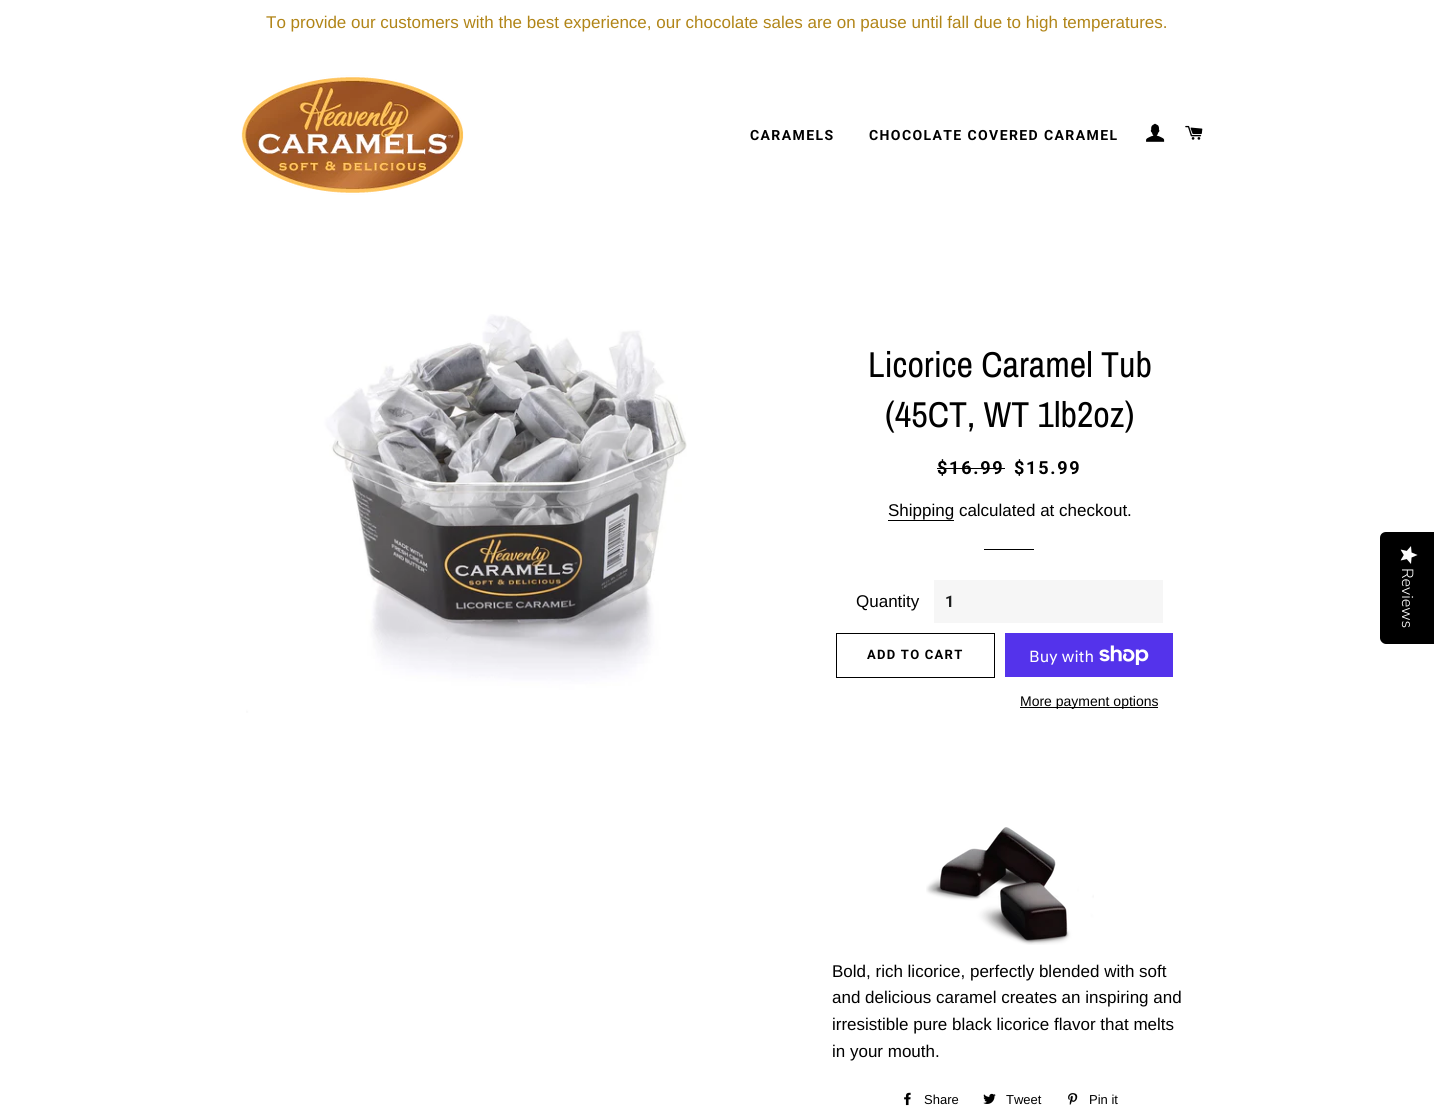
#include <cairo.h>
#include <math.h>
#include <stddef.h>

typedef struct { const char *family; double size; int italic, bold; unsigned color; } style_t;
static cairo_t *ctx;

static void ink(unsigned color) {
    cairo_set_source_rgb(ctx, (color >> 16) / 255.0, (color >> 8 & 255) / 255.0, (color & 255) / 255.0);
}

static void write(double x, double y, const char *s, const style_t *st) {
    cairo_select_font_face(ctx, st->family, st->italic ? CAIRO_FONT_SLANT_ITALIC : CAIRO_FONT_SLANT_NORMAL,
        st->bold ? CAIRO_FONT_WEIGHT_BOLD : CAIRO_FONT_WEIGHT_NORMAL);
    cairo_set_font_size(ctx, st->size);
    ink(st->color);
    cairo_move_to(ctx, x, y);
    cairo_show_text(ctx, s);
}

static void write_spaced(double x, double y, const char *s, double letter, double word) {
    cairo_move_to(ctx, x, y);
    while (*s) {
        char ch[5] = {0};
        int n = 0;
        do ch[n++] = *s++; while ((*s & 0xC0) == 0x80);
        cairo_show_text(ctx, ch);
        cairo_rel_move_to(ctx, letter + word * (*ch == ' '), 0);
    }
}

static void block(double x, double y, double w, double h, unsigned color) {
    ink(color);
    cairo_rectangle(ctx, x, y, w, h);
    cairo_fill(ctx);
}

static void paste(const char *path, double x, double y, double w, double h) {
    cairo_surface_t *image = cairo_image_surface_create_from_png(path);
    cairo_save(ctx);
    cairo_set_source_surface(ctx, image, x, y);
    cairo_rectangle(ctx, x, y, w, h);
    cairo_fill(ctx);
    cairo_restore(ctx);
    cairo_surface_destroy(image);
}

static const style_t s1 = {"Liberation Sans", 17, 0, 0, 0xb18518};
static const style_t s2 = {"Archivo Narrow", 36, 0, 0, 0x000000};
static const style_t s3 = {"Liberation Sans", 17, 0, 0, 0x000000};
static const style_t s4 = {"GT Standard", 16, 0, 0, 0xffffff};
static const style_t s5 = {"Liberation Sans", 14, 0, 0, 0x000000};
static const style_t s6 = {"Liberation Sans", 13, 0, 0, 0x000000};
static const style_t s7 = {"Nunito Sans Light", 16, 0, 0, 0xffffff};

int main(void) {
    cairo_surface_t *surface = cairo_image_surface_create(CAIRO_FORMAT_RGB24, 1434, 1117);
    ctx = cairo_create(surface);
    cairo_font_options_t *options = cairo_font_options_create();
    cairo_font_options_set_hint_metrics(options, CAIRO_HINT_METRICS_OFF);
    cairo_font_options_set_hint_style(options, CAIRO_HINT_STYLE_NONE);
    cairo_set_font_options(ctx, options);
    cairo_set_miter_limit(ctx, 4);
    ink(0xffffff);
    cairo_paint(ctx);
    write(266, 28, "To provide our customers with the best experience, our chocolate sales are on pause until fall due to high temperatures.", &s1);
    paste("pic1.png", 241, 75, 223, 120);
    cairo_select_font_face(ctx, "Roboto", CAIRO_FONT_SLANT_NORMAL, CAIRO_FONT_WEIGHT_BOLD);
    cairo_set_font_size(ctx, 14);
    ink(0x000000);
    write_spaced(750, 140, "CARAMELS", 1.4, 0);
    write_spaced(869, 140, "CHOCOLATE COVERED CARAMEL", 1.4, 0);
    paste("pic2.png", 1146, 123, 19, 19);
    paste("pic3.png", 1185, 125, 18, 15);
    paste("pic4.png", 246, 314, 441, 399);
    write(868, 377, "Licorice Caramel Tub", &s2);
    write(885, 427, "(45CT, WT 1lb2oz)", &s2);
    cairo_select_font_face(ctx, "Roboto", CAIRO_FONT_SLANT_NORMAL, CAIRO_FONT_WEIGHT_BOLD);
    cairo_set_font_size(ctx, 18);
    write_spaced(937, 474, "$16.99", 1.75, 0);
    block(937, 468, 68, 1, 0x000000);
    write_spaced(1014, 474, "$15.99", 1.75, 0);
    write(888, 516, "Shipping calculated at checkout.", &s3);
    block(888, 520, 66, 1, 0x000000);
    block(984, 549, 50, 1, 0x000000);
    write(856, 607, "Quantity", &s3);
    block(934, 580, 229, 43, 0xf6f6f6);
    cairo_select_font_face(ctx, "Roboto", CAIRO_FONT_SLANT_NORMAL, CAIRO_FONT_WEIGHT_BOLD);
    cairo_set_font_size(ctx, 16);
    ink(0x1c1d1d);
    write_spaced(945, 607, "1", 2, 0);
    cairo_rectangle(ctx, 836.5, 633.5, 158, 44);
    ink(0x000000);
    cairo_set_line_width(ctx, 1);
    cairo_stroke(ctx);
    cairo_set_font_size(ctx, 13);
    write_spaced(867, 659, "ADD TO CART", 1.25, 0);
    block(1005, 633, 168, 44, 0x5433eb);
    write(1029, 662, "Buy with", &s4);
    paste("pic5.png", 1099, 645, 50, 20);
    block(1020, 707, 138, 1, 0x000000);
    write(1020, 706, "More payment options", &s5);
    paste("pic6.png", 926, 827, 168, 118);
    write(832, 977, "Bold, rich licorice, perfectly blended with soft", &s3);
    write(832, 1003, "and delicious caramel creates an inspiring and", &s3);
    write(832, 1030, "irresistible pure black licorice flavor that melts", &s3);
    write(832, 1057, "in your mouth.", &s3);
    paste("pic7.png", 904, 1092, 7, 14);
    write(924, 1104, "Share", &s6);
    paste("pic8.png", 983, 1093, 13, 11);
    write(1006, 1104, "Tweet", &s6);
    paste("pic9.png", 1068, 1093, 10, 12);
    write(1089, 1104, "Pin it", &s6);
    cairo_new_path(ctx);
    cairo_move_to(ctx, 1434, 532);
    cairo_line_to(ctx, 1434, 644);
    cairo_line_to(ctx, 1386, 644);
    cairo_curve_to(ctx, 1383, 644, 1380, 641, 1380, 638);
    cairo_line_to(ctx, 1380, 538);
    cairo_curve_to(ctx, 1380, 534, 1383, 532, 1386, 532);
    cairo_close_path(ctx);
    cairo_fill(ctx);
    paste("pic10.png", 1400, 546, 18, 18);
    cairo_save(ctx);
    cairo_translate(ctx, 1402, 568);
    cairo_rotate(ctx, 90 * M_PI / 180);
    write(0, 0, "Reviews", &s7);
    cairo_restore(ctx);
    cairo_surface_write_to_png(surface, "screenshot.png");
    cairo_font_options_destroy(options);
    cairo_destroy(ctx);
    cairo_surface_destroy(surface);
    return 0;
}
